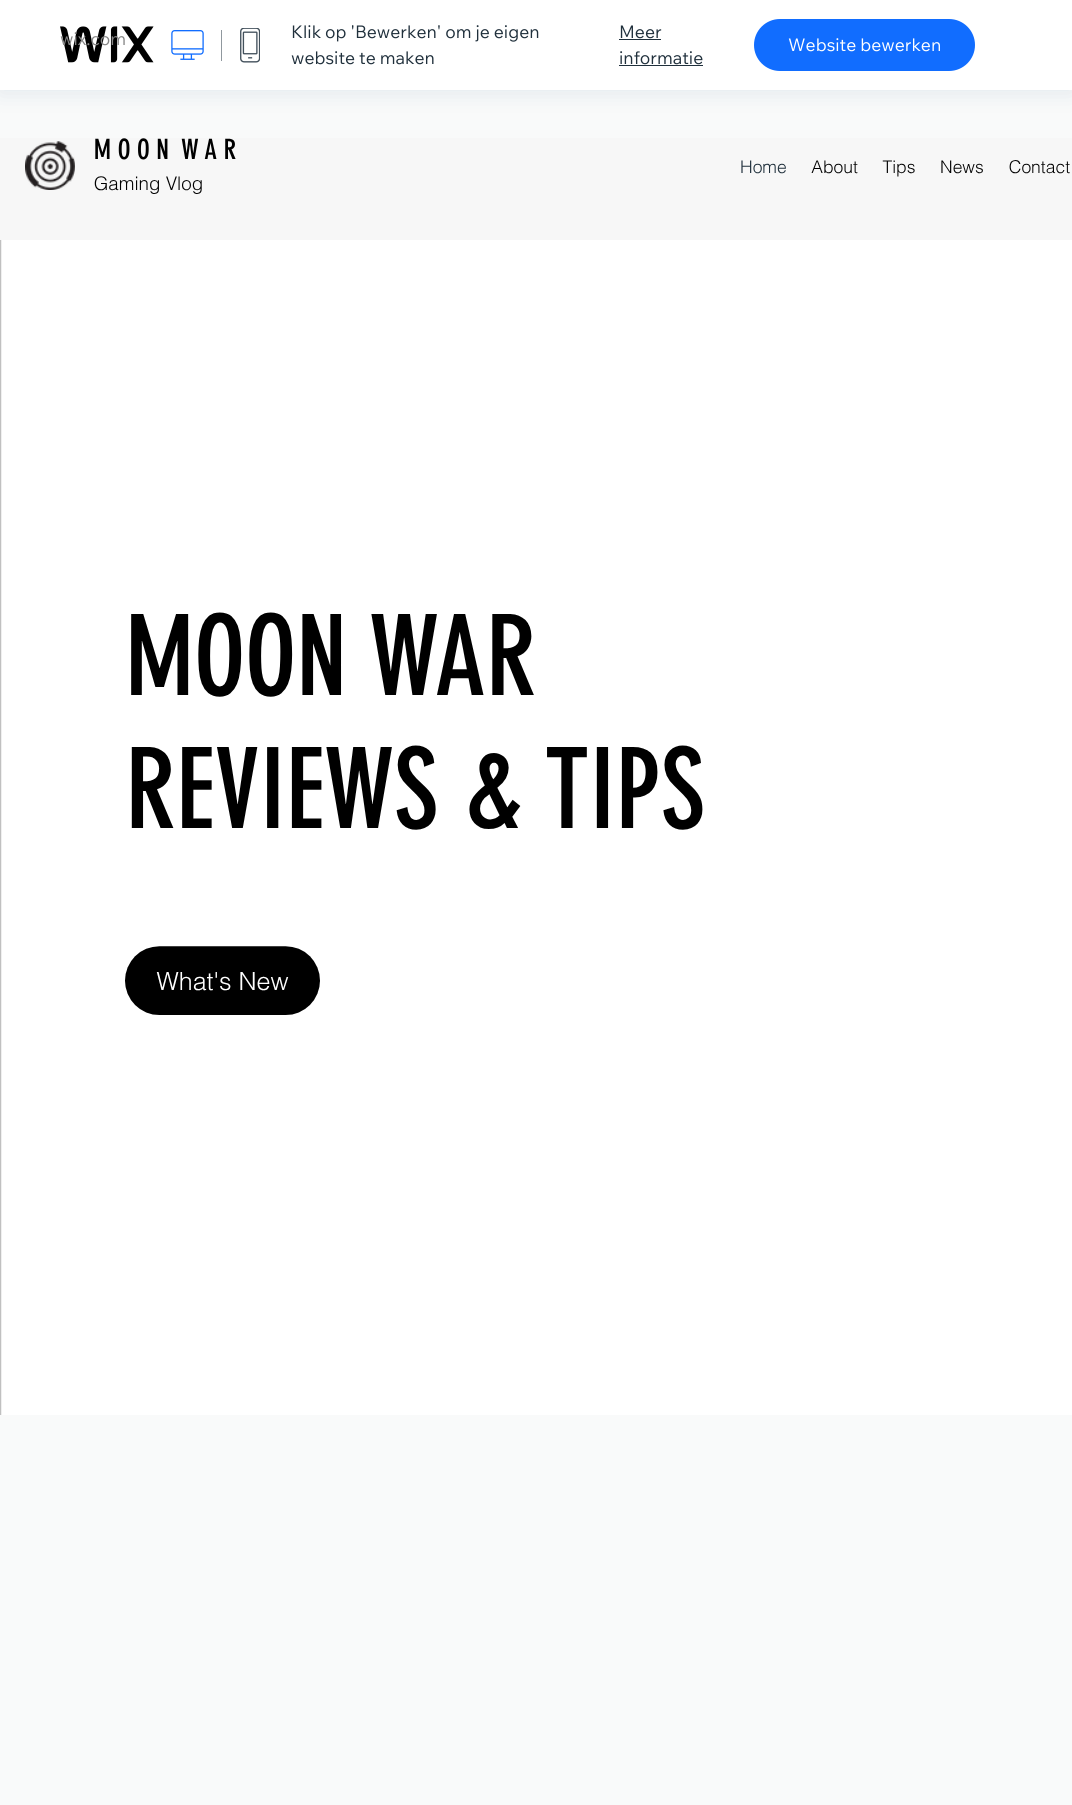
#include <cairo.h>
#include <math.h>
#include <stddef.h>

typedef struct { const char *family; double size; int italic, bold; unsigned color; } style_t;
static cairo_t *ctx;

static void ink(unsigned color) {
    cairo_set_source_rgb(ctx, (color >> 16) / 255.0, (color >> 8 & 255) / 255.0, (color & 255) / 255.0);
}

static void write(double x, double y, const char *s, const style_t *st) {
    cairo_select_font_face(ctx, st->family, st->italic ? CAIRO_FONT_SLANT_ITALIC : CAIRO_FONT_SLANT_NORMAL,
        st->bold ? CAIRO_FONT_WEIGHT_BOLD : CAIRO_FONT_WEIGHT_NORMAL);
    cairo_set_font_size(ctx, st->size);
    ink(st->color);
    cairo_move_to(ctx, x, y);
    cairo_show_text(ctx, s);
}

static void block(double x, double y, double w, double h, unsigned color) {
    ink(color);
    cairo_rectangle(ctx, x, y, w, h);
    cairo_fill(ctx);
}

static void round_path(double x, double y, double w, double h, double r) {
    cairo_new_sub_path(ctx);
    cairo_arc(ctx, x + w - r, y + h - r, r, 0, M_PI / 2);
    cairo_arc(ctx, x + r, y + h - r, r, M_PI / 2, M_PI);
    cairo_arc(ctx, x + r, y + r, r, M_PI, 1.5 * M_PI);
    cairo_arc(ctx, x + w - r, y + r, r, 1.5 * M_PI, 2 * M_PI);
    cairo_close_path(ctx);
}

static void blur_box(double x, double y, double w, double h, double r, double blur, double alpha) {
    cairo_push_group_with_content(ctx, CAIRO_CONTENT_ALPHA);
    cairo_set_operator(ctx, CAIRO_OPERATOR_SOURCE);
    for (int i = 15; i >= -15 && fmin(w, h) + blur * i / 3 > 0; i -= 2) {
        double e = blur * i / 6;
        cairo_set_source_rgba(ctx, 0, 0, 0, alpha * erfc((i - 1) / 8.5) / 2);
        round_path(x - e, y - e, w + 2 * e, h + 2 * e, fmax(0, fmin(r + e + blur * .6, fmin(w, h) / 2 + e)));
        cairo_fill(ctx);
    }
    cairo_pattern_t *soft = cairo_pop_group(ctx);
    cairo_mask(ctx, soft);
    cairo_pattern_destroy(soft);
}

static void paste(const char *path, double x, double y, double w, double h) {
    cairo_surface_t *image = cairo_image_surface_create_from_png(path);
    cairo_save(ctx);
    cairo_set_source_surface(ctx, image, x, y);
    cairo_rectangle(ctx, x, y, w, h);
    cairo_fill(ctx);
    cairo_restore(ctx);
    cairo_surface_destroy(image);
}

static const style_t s1 = {"Wix Madefor Text", 17.5, 0, 0, 0x868686};
static const style_t s2 = {"Wix Madefor Text", 17.5, 0, 0, 0x20303c};
static const style_t s3 = {"Wix Madefor Text", 17.5, 0, 0, 0xffffff};

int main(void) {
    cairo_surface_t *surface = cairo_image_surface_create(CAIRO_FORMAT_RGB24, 1072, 1805);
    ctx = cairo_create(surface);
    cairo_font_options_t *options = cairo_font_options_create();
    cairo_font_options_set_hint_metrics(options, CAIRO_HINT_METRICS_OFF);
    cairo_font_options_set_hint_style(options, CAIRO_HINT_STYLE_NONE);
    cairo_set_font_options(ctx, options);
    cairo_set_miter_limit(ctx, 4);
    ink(0xf9fafa);
    cairo_paint(ctx);
    ink(0x81a2b6);
    blur_box(0, 3, 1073, 90, 0, 11, 0.2);
    block(0, 0, 1072, 90, 0xffffff);
    paste("pic1.png", 60, 26, 94, 37);
    write(60, 45, "wix.com", &s1);
    paste("pic2.png", 171, 30, 33, 30);
    block(221, 30, 1, 31, 0x90989e);
    paste("pic3.png", 240, 28, 20, 35);
    write(291, 38, "Klik op 'Bewerken' om je eigen", &s2);
    write(291, 64, "website te maken", &s2);
    write(619, 38, "Meer", &s2);
    block(619, 39, 42, 1, 0x20303c);
    write(619, 64, "informatie", &s2);
    block(619, 65, 84, 1, 0x20303c);
    ink(0x116dff);
    round_path(754, 19, 221, 52, 26);
    cairo_fill(ctx);
    write(788, 51, "Website bewerken", &s3);
    paste("pic4.png", 0, 138, 1072, 1277);
    cairo_surface_write_to_png(surface, "screenshot.png");
    cairo_font_options_destroy(options);
    cairo_destroy(ctx);
    cairo_surface_destroy(surface);
    return 0;
}
